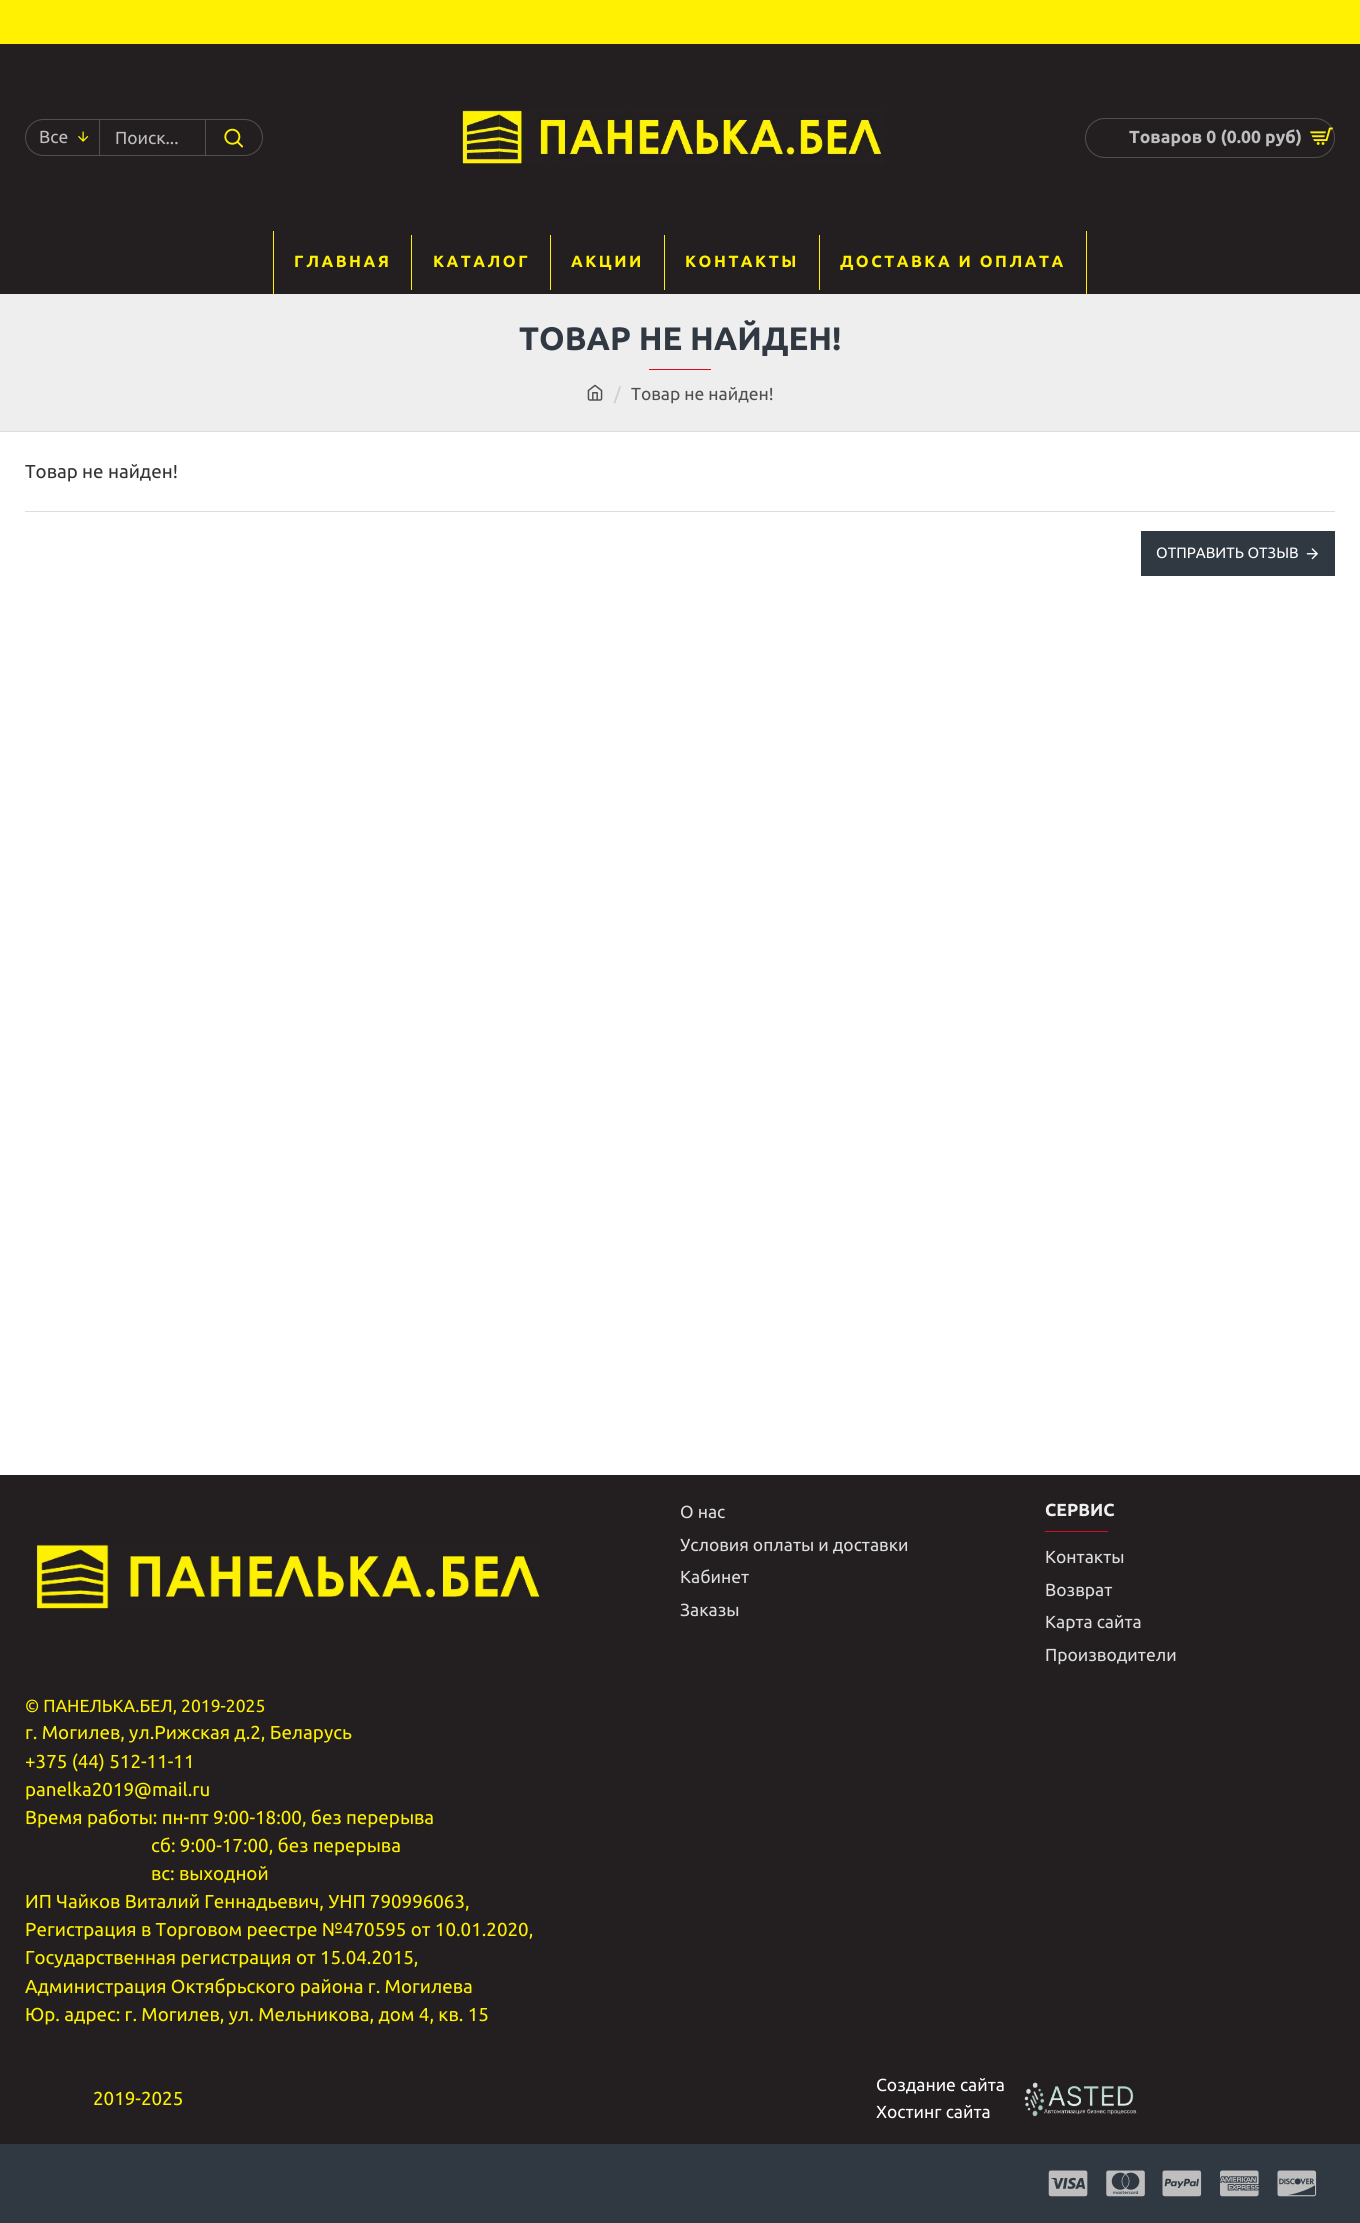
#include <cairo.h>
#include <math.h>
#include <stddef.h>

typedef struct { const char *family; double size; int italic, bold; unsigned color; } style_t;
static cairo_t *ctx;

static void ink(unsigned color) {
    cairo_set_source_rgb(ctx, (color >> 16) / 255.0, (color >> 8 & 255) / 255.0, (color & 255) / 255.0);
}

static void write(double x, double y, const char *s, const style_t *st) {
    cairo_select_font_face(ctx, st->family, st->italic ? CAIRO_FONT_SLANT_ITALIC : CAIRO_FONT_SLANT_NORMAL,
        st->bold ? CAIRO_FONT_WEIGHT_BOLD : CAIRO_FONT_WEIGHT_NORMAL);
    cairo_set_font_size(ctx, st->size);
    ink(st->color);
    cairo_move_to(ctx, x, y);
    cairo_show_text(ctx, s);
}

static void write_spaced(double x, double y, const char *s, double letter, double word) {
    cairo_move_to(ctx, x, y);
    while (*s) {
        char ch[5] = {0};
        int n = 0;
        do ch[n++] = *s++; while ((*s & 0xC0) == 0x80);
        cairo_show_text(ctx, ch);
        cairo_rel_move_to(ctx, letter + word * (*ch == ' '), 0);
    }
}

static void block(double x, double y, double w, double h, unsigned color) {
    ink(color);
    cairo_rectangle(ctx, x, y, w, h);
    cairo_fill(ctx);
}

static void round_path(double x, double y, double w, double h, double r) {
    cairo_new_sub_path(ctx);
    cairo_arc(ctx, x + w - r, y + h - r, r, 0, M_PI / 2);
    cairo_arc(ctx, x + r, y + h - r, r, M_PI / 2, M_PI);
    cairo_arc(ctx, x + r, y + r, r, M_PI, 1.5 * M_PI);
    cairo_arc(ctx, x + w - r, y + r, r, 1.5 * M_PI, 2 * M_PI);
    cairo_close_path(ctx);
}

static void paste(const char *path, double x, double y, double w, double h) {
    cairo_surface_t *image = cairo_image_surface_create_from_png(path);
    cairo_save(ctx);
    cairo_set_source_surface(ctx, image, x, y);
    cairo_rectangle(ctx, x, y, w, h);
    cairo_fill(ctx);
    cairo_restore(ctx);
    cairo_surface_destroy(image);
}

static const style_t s1 = {"Ubuntu", 17.5, 0, 0, 0xbebebe};
static const style_t s2 = {"Ubuntu", 17.5, 0, 1, 0xbebebe};
static const style_t s3 = {"Ubuntu", 32.5, 0, 1, 0x303841};
static const style_t s4 = {"Ubuntu", 17.5, 0, 0, 0xcccccc};
static const style_t s5 = {"Ubuntu", 17.5, 0, 0, 0x505050};
static const style_t s6 = {"Ubuntu", 18.75, 0, 0, 0x333333};
static const style_t s7 = {"Ubuntu", 15, 0, 0, 0xffffff};
static const style_t s8 = {"Ubuntu", 17.5, 0, 0, 0xdddddd};
static const style_t s9 = {"Ubuntu", 17.5, 0, 1, 0xeeeeee};
static const style_t s10 = {"Ubuntu", 17.5, 0, 0, 0xfff101};
static const style_t s11 = {"Ubuntu", 18.75, 0, 0, 0xfff101};
static const style_t s12 = {"Ubuntu", 17.5, 0, 0, 0xffffff};

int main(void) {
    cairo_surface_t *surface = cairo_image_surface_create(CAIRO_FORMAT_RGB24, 1360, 2223);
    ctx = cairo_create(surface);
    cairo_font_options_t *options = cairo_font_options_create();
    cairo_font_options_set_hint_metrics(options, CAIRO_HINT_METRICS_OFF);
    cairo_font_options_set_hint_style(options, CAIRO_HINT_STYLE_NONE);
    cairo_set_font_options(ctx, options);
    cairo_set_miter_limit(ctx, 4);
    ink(0xffffff);
    cairo_paint(ctx);
    block(0, 44, 1360, 250, 0x231f20);
    block(0, 0, 1360, 44, 0xfff101);
    round_path(25.5, 119.5, 237, 36, 18);
    ink(0x505050);
    cairo_set_line_width(ctx, 1);
    cairo_stroke(ctx);
    block(99, 120, 1, 35, 0x505050);
    write(39, 143, "Все", &s1);
    paste("pic1.png", 78, 131, 11, 11);
    write(115, 144, "Поиск...", &s1);
    block(205, 120, 1, 35, 0x505050);
    paste("pic2.png", 224, 128, 20, 20);
    paste("pic3.png", 459, 109, 426, 56);
    round_path(1085.5, 118.5, 249, 39, 19.5);
    cairo_stroke(ctx);
    write(1129, 143, "Товаров 0 (0.00 руб)", &s2);
    paste("pic4.png", 1310, 127, 23, 18);
    block(1086, 231, 1, 63, 0xfff101);
    block(273, 231, 1, 63, 0xfff101);
    cairo_set_font_size(ctx, 16.25);
    write_spaced(294, 267, "ГЛАВНАЯ", 2.5, 0);
    block(411, 235, 1, 55, 0xfff101);
    write_spaced(433, 267, "КАТАЛОГ", 2.5, 0);
    block(550, 235, 1, 55, 0xfff101);
    write_spaced(571, 267, "АКЦИИ", 2.5, 0);
    block(664, 235, 1, 55, 0xfff101);
    write_spaced(685, 267, "КОНТАКТЫ", 2.5, 0);
    block(819, 235, 1, 55, 0xfff101);
    write_spaced(840, 267, "ДОСТАВКА И ОПЛАТА", 2.5, 0);
    block(0, 294, 1360, 137, 0xeeeeee);
    write(519, 350, "ТОВАР НЕ НАЙДЕН!", &s3);
    block(649, 369, 62, 1, 0xda0a22);
    block(0, 431, 1360, 1, 0xdddddd);
    paste("pic5.png", 587, 384, 16, 17);
    write(614, 400, "/", &s4);
    write(631, 400, "Товар не найден!", &s5);
    write(25, 478, "Товар не найден!", &s6);
    block(25, 511, 1310, 1, 0xdddddd);
    block(1141, 531, 194, 45, 0x303841);
    write(1156, 558, "ОТПРАВИТЬ ОТЗЫВ", &s7);
    paste("pic6.png", 1306, 548, 12, 12);
    block(0, 1475, 1360, 669, 0x231f20);
    paste("pic7.png", 35, 1543, 505, 66);
    write(680, 1518, "О нас", &s8);
    write(680, 1551, "Условия оплаты и доставки", &s8);
    write(680, 1583, "Кабинет", &s8);
    write(680, 1616, "Заказы", &s8);
    write(1045, 1516, "СЕРВИС", &s9);
    block(1045, 1531, 63, 1, 0xda0a22);
    write(1045, 1563, "Контакты", &s8);
    write(1045, 1596, "Возврат", &s8);
    write(1045, 1628, "Карта сайта", &s8);
    write(1045, 1661, "Производители", &s8);
    write(25, 1712, "© ПАНЕЛЬКА.БЕЛ, 2019-2025", &s10);
    write(25, 1739, "г. Могилев, ул.Рижская д.2, Беларусь", &s11);
    write(25, 1768, "+375 (44) 512-11-11", &s11);
    write(25, 1796, "panelka2019@mail.ru", &s11);
    write(25, 1824, "Время работы: пн-пт 9:00-18:00, без перерыва", &s11);
    write(151, 1852, "сб: 9:00-17:00, без перерыва", &s11);
    write(151, 1880, "вс: выходной", &s11);
    write(25, 1908, "ИП Чайков Виталий Геннадьевич, УНП 790996063,", &s11);
    write(25, 1936, "Регистрация в Торговом реестре №470595 от 10.01.2020,", &s11);
    write(25, 1964, "Государственная регистрация от 15.04.2015,", &s11);
    write(25, 1993, "Администрация Октябрьского района г. Могилева", &s11);
    write(25, 2021, "Юр. адрес: г. Могилев, ул. Мельникова, дом 4, кв. 15", &s11);
    write(93, 2105, "2019-2025", &s11);
    write(876, 2091, "Создание сайта", &s12);
    write(876, 2118, "Хостинг сайта", &s12);
    paste("pic8.png", 1024, 2082, 113, 35);
    block(0, 2144, 1360, 79, 0x303841);
    paste("pic9.png", 1048, 2170, 40, 27);
    paste("pic10.png", 1106, 2170, 39, 27);
    paste("pic11.png", 1162, 2170, 40, 27);
    paste("pic12.png", 1220, 2170, 39, 27);
    paste("pic13.png", 1277, 2170, 40, 27);
    cairo_surface_write_to_png(surface, "screenshot.png");
    cairo_font_options_destroy(options);
    cairo_destroy(ctx);
    cairo_surface_destroy(surface);
    return 0;
}
